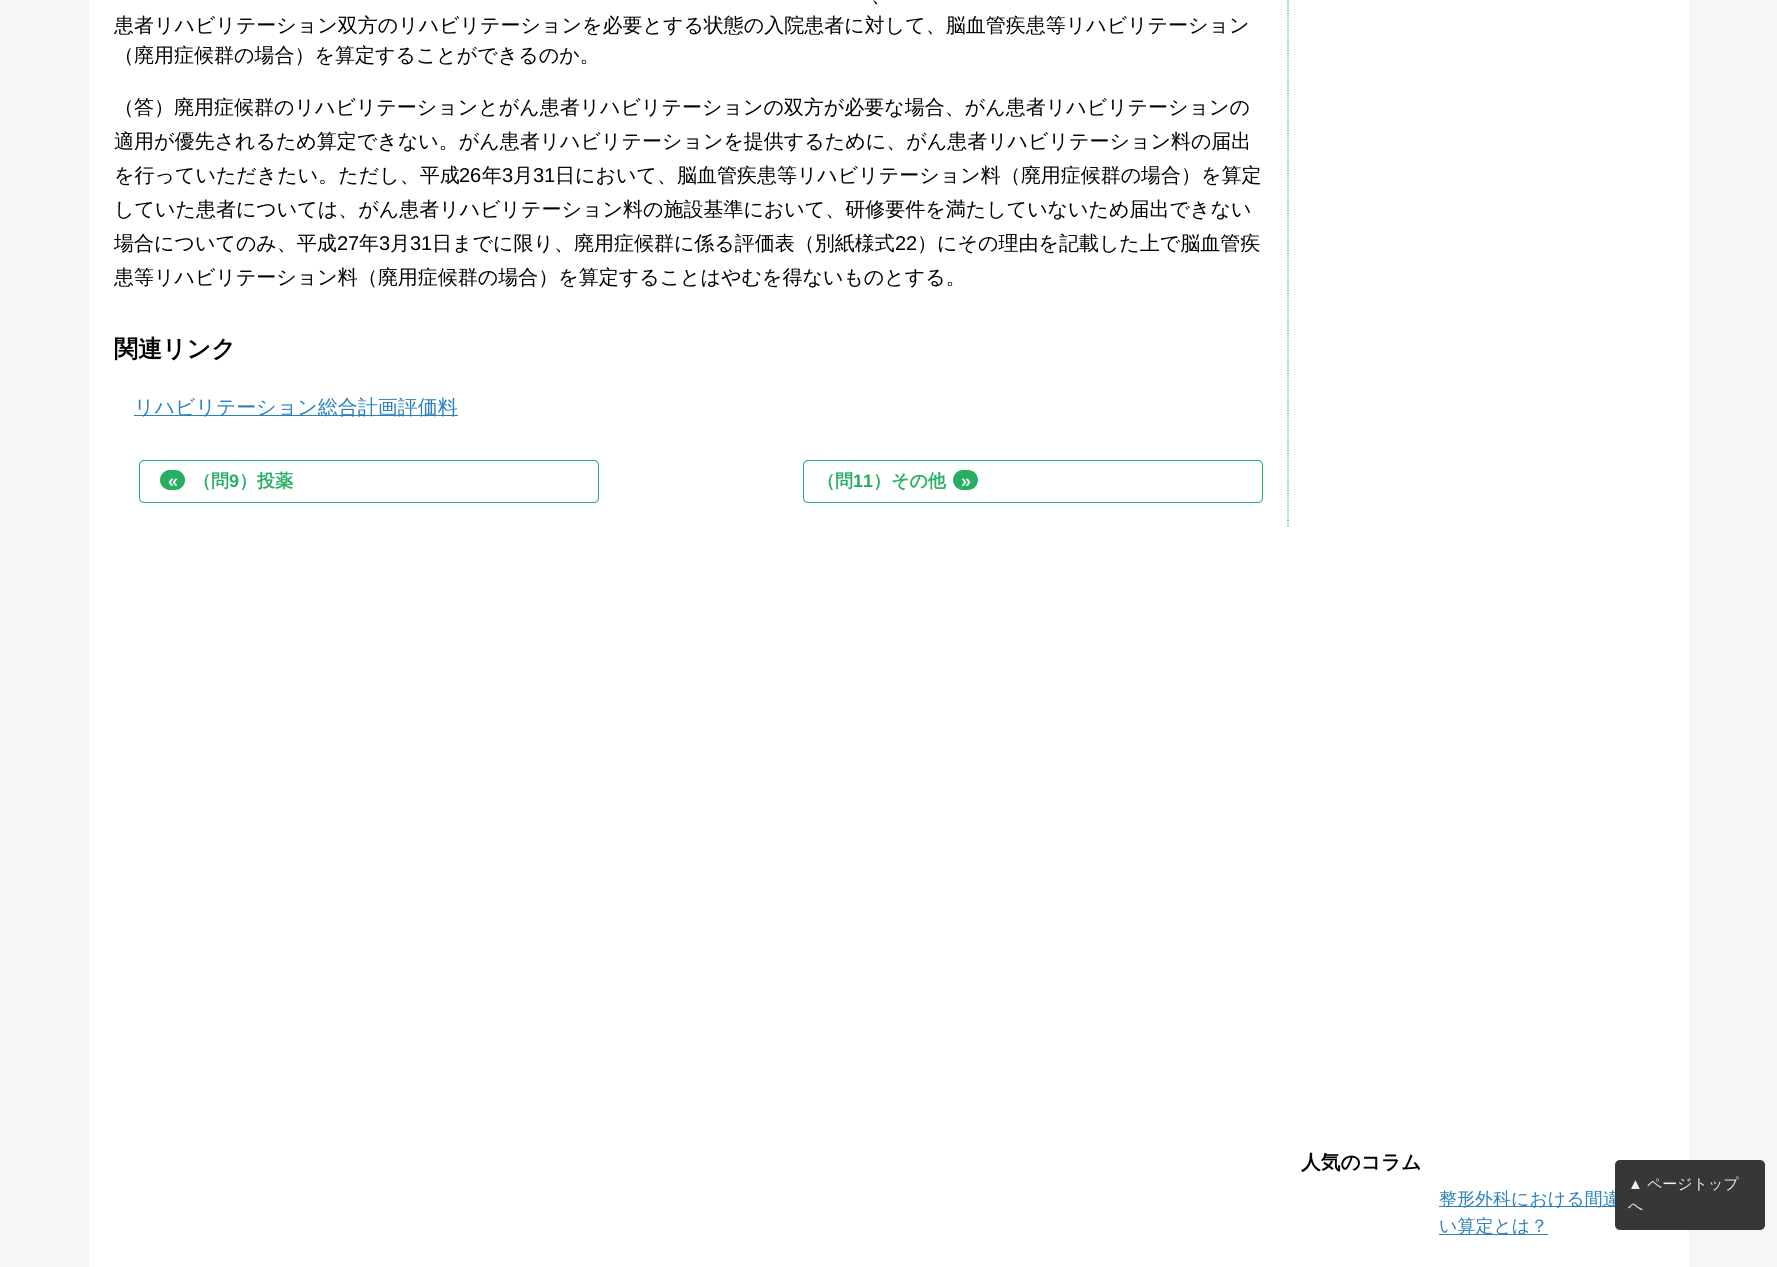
#include <cairo.h>
#include <math.h>
#include <stddef.h>

typedef struct { const char *family; double size; int italic, bold; unsigned color; } style_t;
static cairo_t *ctx;

static void ink(unsigned color) {
    cairo_set_source_rgb(ctx, (color >> 16) / 255.0, (color >> 8 & 255) / 255.0, (color & 255) / 255.0);
}

static void write(double x, double y, const char *s, const style_t *st) {
    cairo_select_font_face(ctx, st->family, st->italic ? CAIRO_FONT_SLANT_ITALIC : CAIRO_FONT_SLANT_NORMAL,
        st->bold ? CAIRO_FONT_WEIGHT_BOLD : CAIRO_FONT_WEIGHT_NORMAL);
    cairo_set_font_size(ctx, st->size);
    ink(st->color);
    cairo_move_to(ctx, x, y);
    cairo_show_text(ctx, s);
}

static void block(double x, double y, double w, double h, unsigned color) {
    ink(color);
    cairo_rectangle(ctx, x, y, w, h);
    cairo_fill(ctx);
}

static void round_path(double x, double y, double w, double h, double r) {
    cairo_new_sub_path(ctx);
    cairo_arc(ctx, x + w - r, y + h - r, r, 0, M_PI / 2);
    cairo_arc(ctx, x + r, y + h - r, r, M_PI / 2, M_PI);
    cairo_arc(ctx, x + r, y + r, r, M_PI, 1.5 * M_PI);
    cairo_arc(ctx, x + w - r, y + r, r, 1.5 * M_PI, 2 * M_PI);
    cairo_close_path(ctx);
}

static const style_t s1 = {"WenQuanYi Zen Hei Medium", 20, 0, 0, 0x000000};
static const style_t s2 = {"Liberation Sans", 20, 0, 0, 0x000000};
static const style_t s3 = {"WenQuanYi Zen Hei", 24, 0, 1, 0x000000};
static const style_t s4 = {"WenQuanYi Zen Hei Medium", 20, 0, 0, 0x2980b9};
static const style_t s5 = {"Liberation Sans", 18, 0, 1, 0xffffff};
static const style_t s6 = {"WenQuanYi Zen Hei", 18, 0, 1, 0x27ae60};
static const style_t s7 = {"Liberation Sans", 18, 0, 1, 0x27ae60};
static const style_t s8 = {"WenQuanYi Zen Hei", 19.75, 0, 1, 0x000000};
static const style_t s9 = {"WenQuanYi Zen Hei Medium", 18, 0, 0, 0x2980b9};
static const style_t s10 = {"Liberation Sans", 15, 0, 0, 0xecf0f1};
static const style_t s11 = {"WenQuanYi Zen Hei Medium", 15, 0, 0, 0xecf0f1};

int main(void) {
    cairo_surface_t *surface = cairo_image_surface_create(CAIRO_FORMAT_RGB24, 1777, 1267);
    ctx = cairo_create(surface);
    cairo_font_options_t *options = cairo_font_options_create();
    cairo_font_options_set_hint_metrics(options, CAIRO_HINT_METRICS_OFF);
    cairo_font_options_set_hint_style(options, CAIRO_HINT_STYLE_NONE);
    cairo_set_font_options(ctx, options);
    cairo_set_miter_limit(ctx, 4);
    ink(0xf6f6f6);
    cairo_paint(ctx);
    block(89, 0, 1600, 1267, 0xffffff);
    cairo_new_path(ctx);
    cairo_move_to(ctx, 1288, -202.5);
    cairo_line_to(ctx, 1288, 527.5);
    ink(0x27ae60);
    cairo_set_line_width(ctx, 1.2);
    cairo_set_dash(ctx, (double[]){1.25, 1.25}, 2, 0);
    cairo_stroke(ctx);
    write(871, 2, "、", &s1);
    write(114, 32, "患者リハビリテーション双方のリハビリテーションを必要とする状態の入院患者に対して、脳血管疾患等リハビリテーション", &s1);
    write(114, 62, "（廃用症候群の場合）を算定することができるのか。", &s1);
    write(114, 114, "（答）廃用症候群のリハビリテーションとがん患者リハビリテーションの双方が必要な場合、がん患者リハビリテーションの", &s1);
    write(114, 148, "適用が優先されるため算定できない。がん患者リハビリテーションを提供するために、がん患者リハビリテーション料の届出", &s1);
    write(114, 182, "を行っていただきたい。ただし、平成", &s1);
    write(459, 182, "26", &s2);
    write(482, 182, "年", &s1);
    write(502, 182, "3", &s2);
    write(513, 182, "月", &s1);
    write(533, 182, "31", &s2);
    write(555, 182, "日において、脳血管疾患等リハビリテーション料（廃用症候群の場合）を算定", &s1);
    write(114, 216, "していた患者については、がん患者リハビリテーション料の施設基準において、研修要件を満たしていないため届出できない", &s1);
    write(114, 250, "場合についてのみ、平成", &s1);
    write(337, 250, "27", &s2);
    write(359, 250, "年", &s1);
    write(379, 250, "3", &s2);
    write(390, 250, "月", &s1);
    write(410, 250, "31", &s2);
    write(432, 250, "日までに限り、廃用症候群に係る評価表（別紙様式", &s1);
    write(895, 250, "22", &s2);
    write(917, 250, "）にその理由を記載した上で脳血管疾", &s1);
    write(114, 284, "患等リハビリテーション料（廃用症候群の場合）を算定することはやむを得ないものとする。", &s1);
    write(114, 357, "関連リンク", &s3);
    block(134, 415, 324, 1, 0x2980b9);
    write(134, 414, "リハビリテーション総合計画評価料", &s4);
    round_path(139.5, 460.5, 459, 42, 4.5);
    ink(0x27ae60);
    cairo_set_line_width(ctx, 1);
    cairo_set_dash(ctx, NULL, 0, 0);
    cairo_stroke(ctx);
    round_path(160, 470, 25, 20, 10);
    cairo_fill(ctx);
    write(168, 487, "«", &s5);
    write(193, 487, "（問", &s6);
    write(229, 487, "9", &s7);
    write(239, 487, "）投薬", &s6);
    round_path(803.5, 460.5, 459, 42, 4.5);
    cairo_stroke(ctx);
    write(817, 487, "（問", &s6);
    write(853, 487, "11", &s7);
    write(873, 487, "）その他", &s6);
    round_path(953, 470, 25, 20, 10);
    cairo_fill(ctx);
    write(961, 487, "»", &s5);
    write(1301, 1169, "人気のコラム", &s8);
    block(1439, 1206, 236, 1, 0x2980b9);
    write(1439, 1205, "整形外科における間違", &s9);
    block(1439, 1234, 109, 1, 0x2980b9);
    write(1439, 1232, "い算定とは？", &s9);
    cairo_set_source_rgba(ctx, 0.2, 0.2, 0.2, 0.98);
    round_path(1615, 1160, 150, 70, 5);
    cairo_fill(ctx);
    write(1628, 1189, "▲", &s10);
    write(1647, 1189, "ページトップ", &s11);
    write(1628, 1211, "へ", &s11);
    cairo_surface_write_to_png(surface, "screenshot.png");
    cairo_font_options_destroy(options);
    cairo_destroy(ctx);
    cairo_surface_destroy(surface);
    return 0;
}
